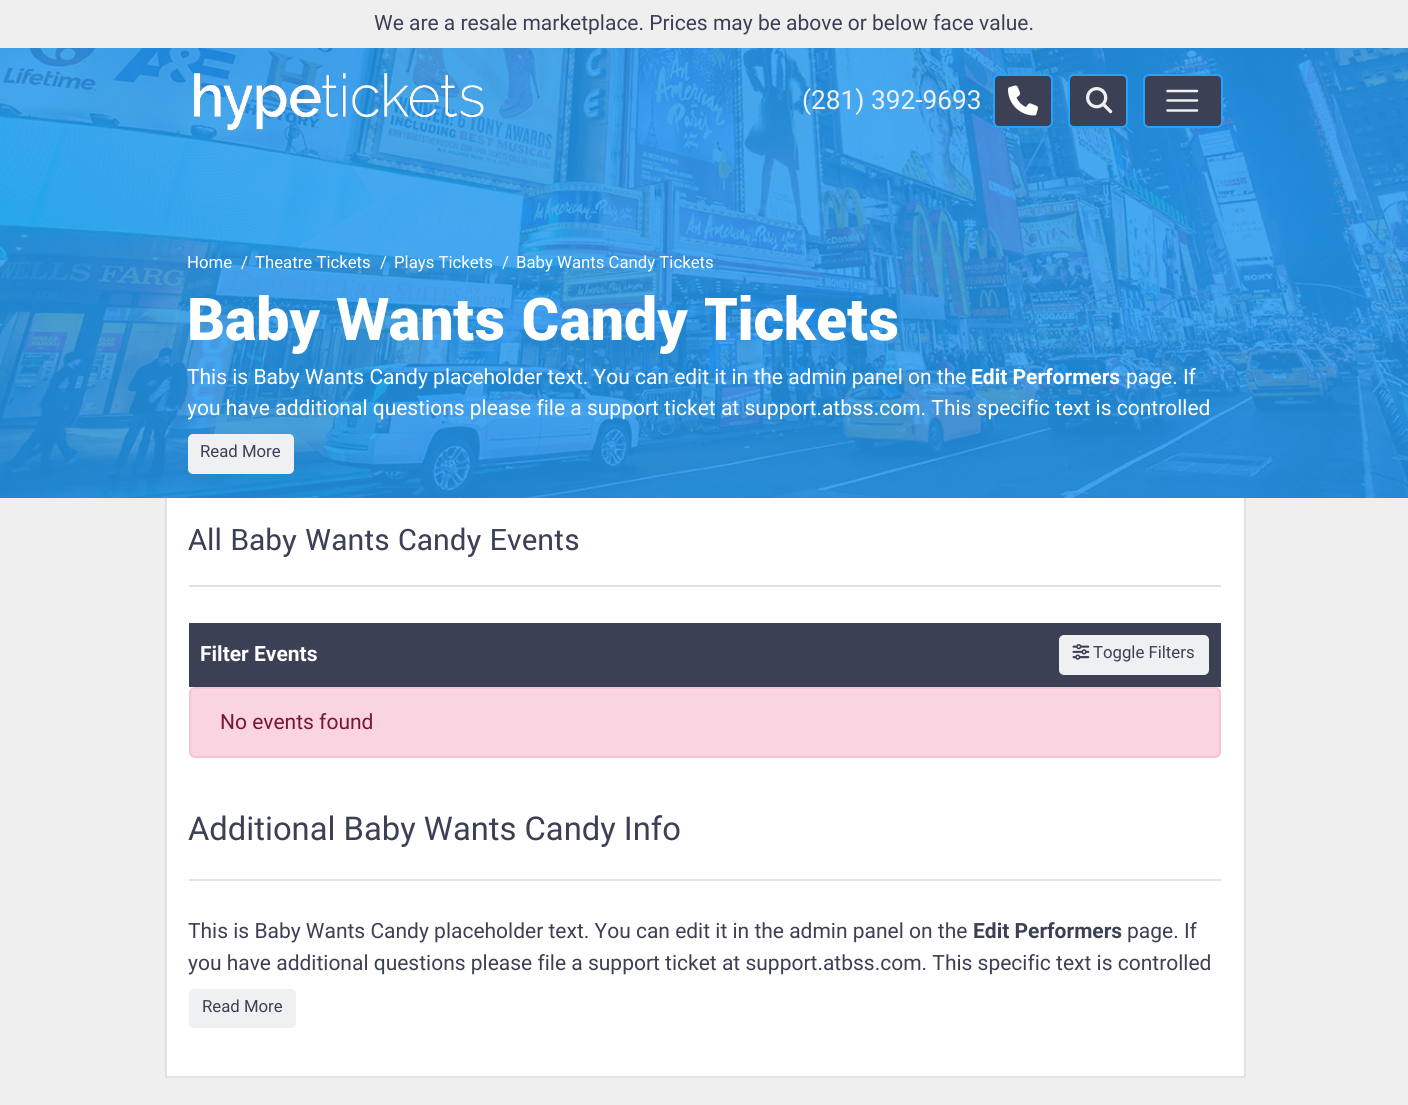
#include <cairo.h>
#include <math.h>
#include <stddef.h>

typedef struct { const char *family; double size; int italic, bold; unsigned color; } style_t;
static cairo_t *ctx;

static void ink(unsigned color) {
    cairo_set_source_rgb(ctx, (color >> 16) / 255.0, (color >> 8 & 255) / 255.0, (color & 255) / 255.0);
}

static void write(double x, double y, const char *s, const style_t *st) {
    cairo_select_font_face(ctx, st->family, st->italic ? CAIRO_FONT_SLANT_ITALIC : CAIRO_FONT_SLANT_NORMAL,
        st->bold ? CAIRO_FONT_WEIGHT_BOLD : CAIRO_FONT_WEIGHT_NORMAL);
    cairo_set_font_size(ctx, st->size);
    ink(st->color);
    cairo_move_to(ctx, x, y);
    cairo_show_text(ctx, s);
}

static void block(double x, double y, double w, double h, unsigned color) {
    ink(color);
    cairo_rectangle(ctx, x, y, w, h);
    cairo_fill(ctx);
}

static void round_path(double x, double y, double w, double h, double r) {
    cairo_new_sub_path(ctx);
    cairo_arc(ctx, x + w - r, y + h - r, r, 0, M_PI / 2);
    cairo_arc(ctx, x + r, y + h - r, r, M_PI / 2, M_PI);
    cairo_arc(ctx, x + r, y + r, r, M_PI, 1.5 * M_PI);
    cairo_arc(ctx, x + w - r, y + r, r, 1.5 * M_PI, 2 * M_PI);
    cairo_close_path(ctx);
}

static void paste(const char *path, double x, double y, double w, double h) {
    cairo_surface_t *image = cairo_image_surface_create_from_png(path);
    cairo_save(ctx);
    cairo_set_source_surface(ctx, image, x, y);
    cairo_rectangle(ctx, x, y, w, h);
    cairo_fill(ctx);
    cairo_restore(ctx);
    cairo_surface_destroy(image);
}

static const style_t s1 = {"Roboto", 21, 0, 0, 0x3c4055};
static const style_t s2 = {"Roboto", 26.25, 0, 0, 0xeef0f2};
static const style_t s3 = {"Roboto", 16.75, 0, 0, 0xffffff};
static const style_t s4 = {"Yantramanav Black", 65.6, 0, 0, 0xffffff};
static const style_t s5 = {"Roboto", 21, 0, 0, 0xffffff};
static const style_t s6 = {"Roboto", 21, 0, 1, 0xffffff};
static const style_t s7 = {"Roboto", 16.75, 0, 0, 0x3c4055};
static const style_t s8 = {"Yantramanav", 32.75, 0, 0, 0x3c4055};
static const style_t s9 = {"Roboto", 21, 0, 0, 0x791538};
static const style_t s10 = {"Roboto", 32.75, 0, 0, 0x3c4055};
static const style_t s11 = {"Roboto", 21, 0, 1, 0x3c4055};

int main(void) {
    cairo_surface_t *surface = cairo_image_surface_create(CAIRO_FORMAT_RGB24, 1408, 1105);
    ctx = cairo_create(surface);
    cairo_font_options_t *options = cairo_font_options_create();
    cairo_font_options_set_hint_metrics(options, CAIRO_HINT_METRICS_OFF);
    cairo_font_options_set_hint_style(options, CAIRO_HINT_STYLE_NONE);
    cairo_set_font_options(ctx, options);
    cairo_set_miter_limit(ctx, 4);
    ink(0xefefef);
    cairo_paint(ctx);
    write(374, 30, "We are a resale marketplace. Prices may be above or below face value.", &s1);
    block(0, 48, 1408, 450, 0x27a2fc);
    paste("pic4.png", 0, 48, 1408, 450);
    paste("pic1.png", 193, 73, 291, 58);
    write(802, 109, "(281) 392-9693", &s2);
    ink(0x3c4055);
    round_path(994, 75, 58, 52, 5);
    cairo_fill_preserve(ctx);
    ink(0x27a2fc);
    cairo_stroke(ctx);
    paste("pic2.png", 1008, 85, 30, 31);
    ink(0x3c4055);
    round_path(1069, 75, 58, 52, 5);
    cairo_fill_preserve(ctx);
    ink(0x27a2fc);
    cairo_stroke(ctx);
    paste("pic3.png", 1086, 87, 27, 27);
    ink(0x3c4055);
    round_path(1144, 75, 78, 52, 5);
    cairo_fill_preserve(ctx);
    ink(0x27a2fc);
    cairo_stroke(ctx);
    cairo_new_path(ctx);
    cairo_move_to(ctx, 1167.5, 91);
    cairo_line_to(ctx, 1197, 91);
    cairo_move_to(ctx, 1167.5, 100.5);
    cairo_line_to(ctx, 1197, 100.5);
    cairo_move_to(ctx, 1167.5, 110.5);
    cairo_line_to(ctx, 1197, 110.5);
    ink(0xeef0f2);
    cairo_set_line_width(ctx, 2.5);
    cairo_set_line_cap(ctx, CAIRO_LINE_CAP_ROUND);
    cairo_stroke(ctx);
    write(187, 268, "Home", &s3);
    write(241, 268, "/", &s3);
    write(255, 268, "Theatre Tickets", &s3);
    write(380, 268, "/", &s3);
    write(394, 268, "Plays Tickets", &s3);
    write(502, 268, "/", &s3);
    write(516, 268, "Baby Wants Candy Tickets", &s3);
    write(187, 340, "Baby Wants Candy Tickets", &s4);
    write(187, 384, "This is Baby Wants Candy placeholder text. You can edit it in the admin panel on the", &s5);
    write(971, 384, "Edit Performers", &s6);
    write(1126, 384, "page. If", &s5);
    cairo_save(ctx);
    cairo_rectangle(ctx, 188, 362, 1035, 60);
    cairo_clip(ctx);
    write(187, 415, "you have additional questions please file a support ticket at support.atbss.com. This specific text is controlled", &s5);
    cairo_restore(ctx);
    ink(0xeef0f2);
    round_path(189, 435, 104, 38, 4);
    cairo_fill_preserve(ctx);
    cairo_set_line_width(ctx, 2);
    cairo_set_line_cap(ctx, CAIRO_LINE_CAP_BUTT);
    cairo_stroke(ctx);
    write(200, 457, "Read More", &s7);
    block(167, 498, 1077, 578, 0xffffff);
    block(1244, 498, 2, 579, 0xdee2e6);
    block(165, 1076, 1080, 2, 0xdee2e6);
    block(165, 498, 2, 579, 0xdee2e6);
    block(189, 585, 1032, 2, 0xdee2e6);
    write(188, 550, "All Baby Wants Candy Events", &s8);
    block(189, 623, 1032, 64, 0x3c4055);
    write(200, 661, "Filter Events", &s6);
    ink(0xeef0f2);
    round_path(1060, 636, 148, 38, 4);
    cairo_fill_preserve(ctx);
    cairo_stroke(ctx);
    paste("pic5.png", 1072, 644, 18, 16);
    write(1093, 658, "Toggle Filters", &s7);
    ink(0xfad4e1);
    round_path(190, 688, 1030, 69, 5);
    cairo_fill_preserve(ctx);
    ink(0xf9c3d6);
    cairo_stroke(ctx);
    write(220, 729, "No events found", &s9);
    block(189, 879, 1032, 2, 0xdee2e6);
    write(188, 840, "Additional Baby Wants Candy Info", &s10);
    write(188, 938, "This is Baby Wants Candy placeholder text. You can edit it in the admin panel on the", &s1);
    write(973, 938, "Edit Performers", &s11);
    write(1127, 938, "page. If", &s1);
    write(188, 970, "you have additional questions please file a support ticket at support.atbss.com. This specific text is controlled", &s1);
    ink(0xeef0f2);
    round_path(190, 990, 105, 37, 4);
    cairo_fill_preserve(ctx);
    cairo_stroke(ctx);
    write(202, 1012, "Read More", &s7);
    cairo_surface_write_to_png(surface, "screenshot.png");
    cairo_font_options_destroy(options);
    cairo_destroy(ctx);
    cairo_surface_destroy(surface);
    return 0;
}
